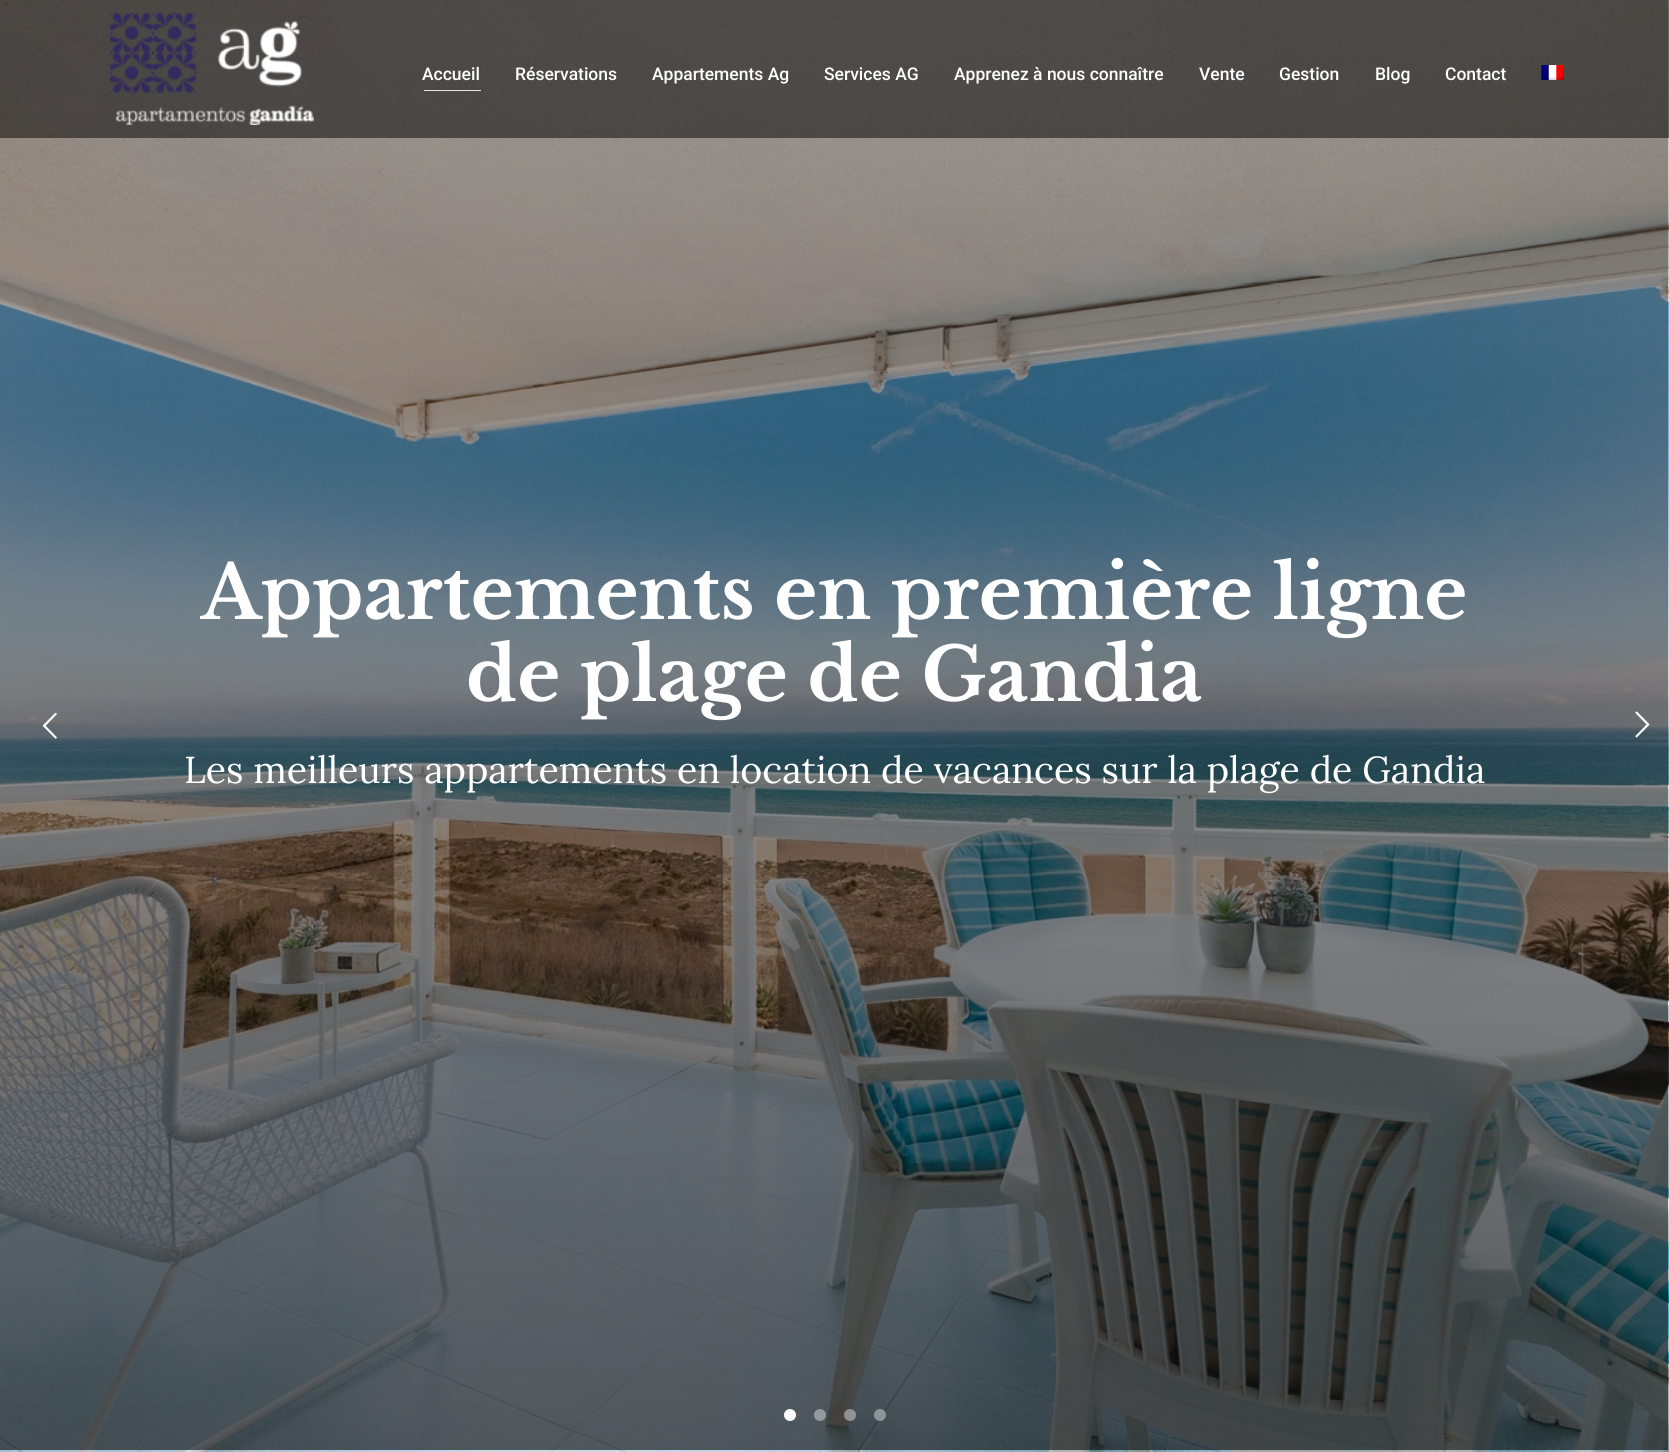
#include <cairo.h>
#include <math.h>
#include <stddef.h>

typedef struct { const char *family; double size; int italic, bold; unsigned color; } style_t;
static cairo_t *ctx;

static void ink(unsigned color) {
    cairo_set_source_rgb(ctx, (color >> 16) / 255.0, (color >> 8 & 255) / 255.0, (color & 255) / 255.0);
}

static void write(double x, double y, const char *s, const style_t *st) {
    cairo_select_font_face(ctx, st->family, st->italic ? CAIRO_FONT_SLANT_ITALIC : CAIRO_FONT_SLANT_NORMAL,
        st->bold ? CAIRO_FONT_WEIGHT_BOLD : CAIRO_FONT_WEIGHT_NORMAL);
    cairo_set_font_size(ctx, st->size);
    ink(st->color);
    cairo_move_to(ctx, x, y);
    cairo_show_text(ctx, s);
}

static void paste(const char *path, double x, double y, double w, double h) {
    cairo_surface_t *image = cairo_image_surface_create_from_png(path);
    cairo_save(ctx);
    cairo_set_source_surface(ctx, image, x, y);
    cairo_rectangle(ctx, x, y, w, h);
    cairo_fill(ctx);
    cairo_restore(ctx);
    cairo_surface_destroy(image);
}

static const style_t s1 = {"Roboto Medium", 17.5, 0, 0, 0xffffff};
static const style_t s2 = {"Libre Baskerville", 73.75, 0, 1, 0xffffff};
static const style_t s3 = {"Lora", 37.5, 0, 0, 0xffffff};

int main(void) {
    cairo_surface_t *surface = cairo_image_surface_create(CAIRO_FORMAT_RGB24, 1669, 1452);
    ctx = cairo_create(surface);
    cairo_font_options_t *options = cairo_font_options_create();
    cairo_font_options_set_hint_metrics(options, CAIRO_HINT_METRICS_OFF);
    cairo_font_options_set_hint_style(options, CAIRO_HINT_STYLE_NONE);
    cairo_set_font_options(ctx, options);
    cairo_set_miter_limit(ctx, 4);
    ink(0xffffff);
    cairo_paint(ctx);
    paste("pic4.png", 0, 0, 1669, 1452);
    cairo_set_source_rgba(ctx, 0, 0, 0, 0.5);
    cairo_rectangle(ctx, 0, 0, 1669, 138);
    cairo_fill(ctx);
    paste("pic1.png", 110, 12, 204, 113);
    write(422, 80, "Accueil", &s1);
    cairo_set_source_rgba(ctx, 1, 1, 1, 0.85);
    cairo_rectangle(ctx, 424, 90, 57, 1);
    cairo_fill(ctx);
    write(515, 80, "Réservations", &s1);
    write(652, 80, "Appartements Ag", &s1);
    write(824, 80, "Services AG", &s1);
    write(954, 80, "Apprenez à nous connaître", &s1);
    write(1199, 80, "Vente", &s1);
    write(1279, 80, "Gestion", &s1);
    write(1375, 80, "Blog", &s1);
    write(1445, 80, "Contact", &s1);
    paste("pic2.png", 1541, 65, 23, 15);
    paste("pic3.png", 42, 712, 15, 27);
    write(201, 619, "Appartements en première ligne", &s2);
    write(466, 701, "de plage de Gandia", &s2);
    write(184, 783, "Les meilleurs appartements en location de vacances sur la plage de Gandia", &s3);
    paste("pic5.png", 1635, 711, 15, 27);
    ink(0xfdfdfd);
    cairo_arc(ctx, 790, 1415, 6, 0, 2 * M_PI);
    cairo_fill(ctx);
    cairo_set_source_rgba(ctx, 1, 1, 1, 0.4);
    cairo_arc(ctx, 820, 1415, 6, 0, 2 * M_PI);
    cairo_fill(ctx);
    cairo_arc(ctx, 850, 1415, 6, 0, 2 * M_PI);
    cairo_fill(ctx);
    cairo_arc(ctx, 880, 1415, 6, 0, 2 * M_PI);
    cairo_fill(ctx);
    cairo_surface_write_to_png(surface, "screenshot.png");
    cairo_font_options_destroy(options);
    cairo_destroy(ctx);
    cairo_surface_destroy(surface);
    return 0;
}
